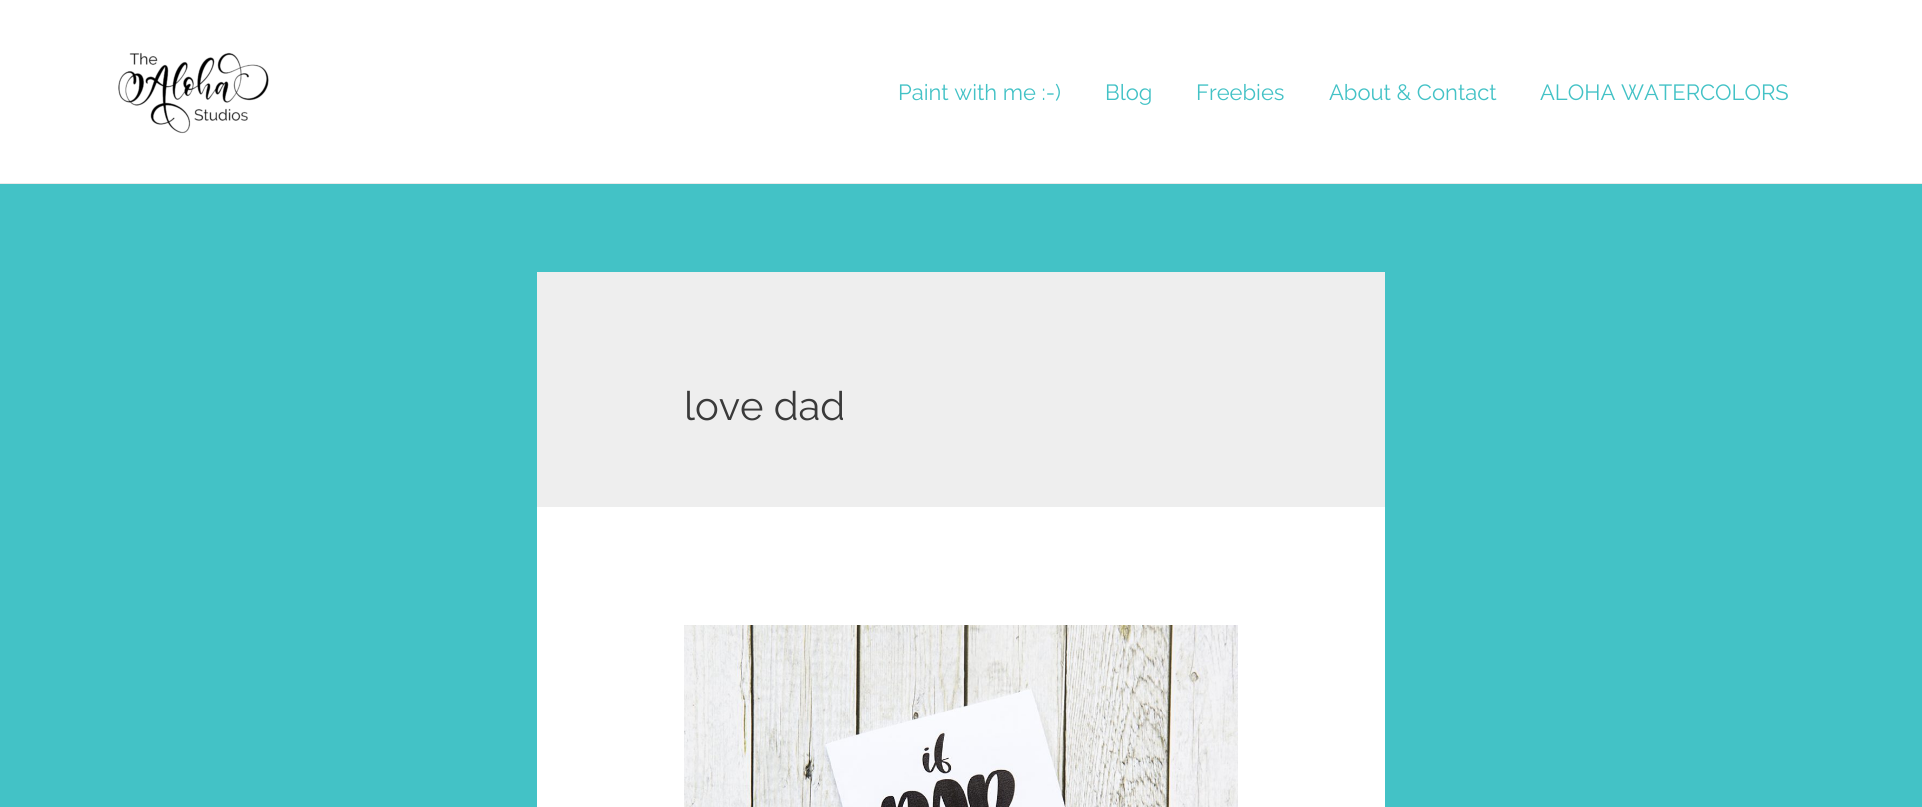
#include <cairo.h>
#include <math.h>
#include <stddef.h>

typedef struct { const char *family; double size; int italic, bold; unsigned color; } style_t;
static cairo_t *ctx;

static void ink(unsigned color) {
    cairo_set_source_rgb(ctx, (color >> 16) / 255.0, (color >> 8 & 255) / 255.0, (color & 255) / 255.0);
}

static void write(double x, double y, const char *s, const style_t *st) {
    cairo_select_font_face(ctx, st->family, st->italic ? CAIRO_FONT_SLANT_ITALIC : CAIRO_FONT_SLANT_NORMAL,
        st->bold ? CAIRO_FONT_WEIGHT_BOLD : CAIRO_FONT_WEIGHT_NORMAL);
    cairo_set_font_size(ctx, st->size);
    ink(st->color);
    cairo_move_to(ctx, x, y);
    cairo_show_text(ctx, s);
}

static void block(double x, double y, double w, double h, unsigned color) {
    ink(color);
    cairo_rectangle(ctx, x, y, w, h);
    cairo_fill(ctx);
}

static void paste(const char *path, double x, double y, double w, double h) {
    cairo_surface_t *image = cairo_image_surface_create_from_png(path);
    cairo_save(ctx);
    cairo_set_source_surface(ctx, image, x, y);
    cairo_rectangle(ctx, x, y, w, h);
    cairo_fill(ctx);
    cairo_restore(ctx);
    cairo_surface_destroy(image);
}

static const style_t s1 = {"Raleway Thin", 22, 0, 0, 0x43c2c6};
static const style_t s2 = {"Raleway Thin", 40, 0, 0, 0x3a3a3a};

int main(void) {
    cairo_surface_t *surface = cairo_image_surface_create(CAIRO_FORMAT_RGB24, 1922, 807);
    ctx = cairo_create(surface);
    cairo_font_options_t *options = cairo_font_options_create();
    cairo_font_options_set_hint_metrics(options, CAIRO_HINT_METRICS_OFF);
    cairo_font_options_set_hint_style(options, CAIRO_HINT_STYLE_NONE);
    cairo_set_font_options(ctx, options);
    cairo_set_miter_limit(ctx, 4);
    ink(0x43c2c6);
    cairo_paint(ctx);
    block(0, 0, 1922, 183, 0xffffff);
    block(0, 183, 1922, 1, 0xeaeaea);
    paste("pic1.png", 118, 52, 151, 82);
    write(898, 100, "Paint with me :-)", &s1);
    write(1105, 100, "Blog", &s1);
    write(1196, 100, "Freebies", &s1);
    write(1329, 100, "About & Contact", &s1);
    write(1540, 100, "ALOHA WATERCOLORS", &s1);
    block(537, 272, 848, 235, 0xeeeeee);
    write(684, 420, "love dad", &s2);
    block(537, 507, 848, 300, 0xffffff);
    paste("pic2.png", 684, 625, 554, 182);
    cairo_surface_write_to_png(surface, "screenshot.png");
    cairo_font_options_destroy(options);
    cairo_destroy(ctx);
    cairo_surface_destroy(surface);
    return 0;
}
